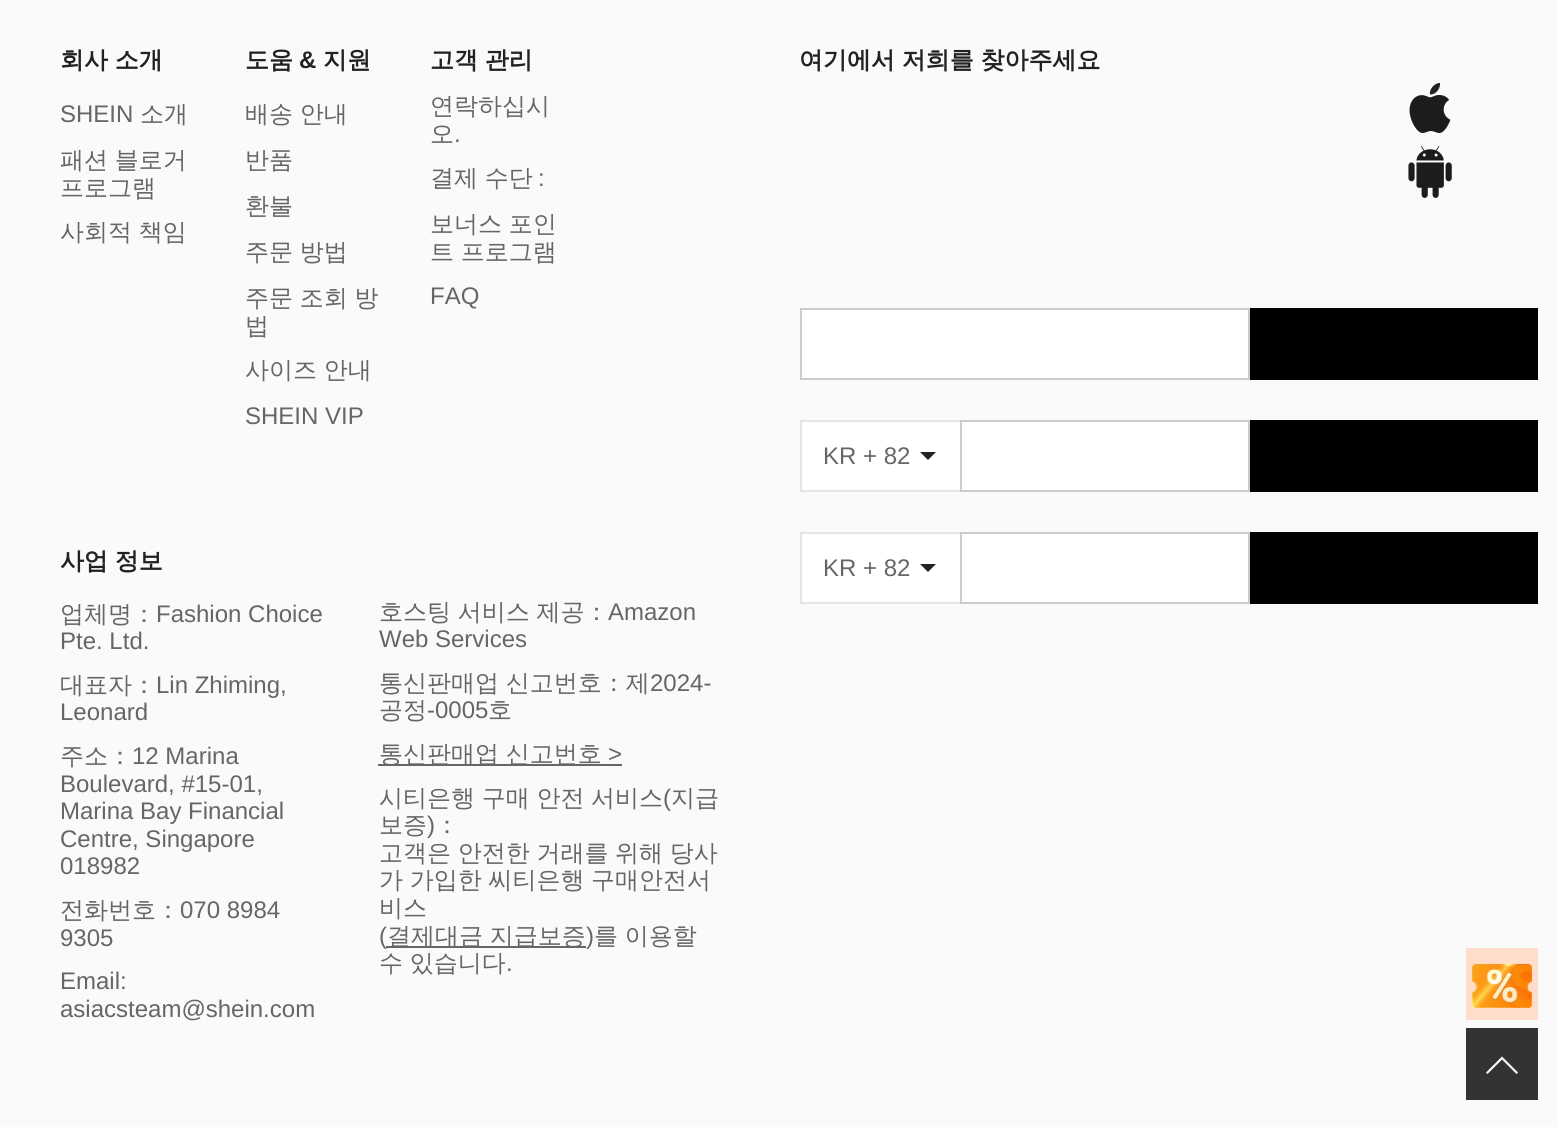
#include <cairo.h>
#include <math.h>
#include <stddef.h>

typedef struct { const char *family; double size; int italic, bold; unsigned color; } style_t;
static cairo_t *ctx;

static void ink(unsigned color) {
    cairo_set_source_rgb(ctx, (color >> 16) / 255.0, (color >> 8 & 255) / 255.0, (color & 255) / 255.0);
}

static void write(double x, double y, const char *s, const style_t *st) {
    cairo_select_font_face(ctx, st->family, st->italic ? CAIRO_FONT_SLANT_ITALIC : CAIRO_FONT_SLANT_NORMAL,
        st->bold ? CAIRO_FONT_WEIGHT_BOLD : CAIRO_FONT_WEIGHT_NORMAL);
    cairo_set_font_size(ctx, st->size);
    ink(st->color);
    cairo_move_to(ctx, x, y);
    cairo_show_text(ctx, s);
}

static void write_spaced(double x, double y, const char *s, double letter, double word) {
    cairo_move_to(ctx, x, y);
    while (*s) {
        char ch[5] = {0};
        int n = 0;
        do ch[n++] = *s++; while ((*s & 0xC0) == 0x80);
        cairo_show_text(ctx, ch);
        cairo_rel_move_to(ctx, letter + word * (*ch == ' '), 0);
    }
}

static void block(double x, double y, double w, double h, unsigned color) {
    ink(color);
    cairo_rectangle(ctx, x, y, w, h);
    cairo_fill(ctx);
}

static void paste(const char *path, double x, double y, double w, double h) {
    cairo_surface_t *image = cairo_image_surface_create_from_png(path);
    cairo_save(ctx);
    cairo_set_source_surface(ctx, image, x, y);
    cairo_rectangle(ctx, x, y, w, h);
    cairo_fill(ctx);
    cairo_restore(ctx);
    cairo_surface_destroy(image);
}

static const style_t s1 = {"Liberation Sans", 24, 0, 0, 0x666666};
static const style_t s2 = {"WenQuanYi Zen Hei Medium", 24, 0, 0, 0x666666};
static const style_t s3 = {"WenQuanYi Zen Hei", 24, 0, 1, 0x222222};
static const style_t s4 = {"Liberation Sans", 24, 0, 1, 0x222222};

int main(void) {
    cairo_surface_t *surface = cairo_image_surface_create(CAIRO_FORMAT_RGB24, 1557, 1127);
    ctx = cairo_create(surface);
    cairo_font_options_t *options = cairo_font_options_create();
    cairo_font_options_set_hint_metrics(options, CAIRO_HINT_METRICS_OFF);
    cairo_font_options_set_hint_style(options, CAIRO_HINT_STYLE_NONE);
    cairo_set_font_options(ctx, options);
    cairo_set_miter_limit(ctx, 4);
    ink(0xfafafa);
    cairo_paint(ctx);
    cairo_select_font_face(ctx, "WenQuanYi Zen Hei", CAIRO_FONT_SLANT_NORMAL, CAIRO_FONT_WEIGHT_BOLD);
    cairo_set_font_size(ctx, 24);
    ink(0x222222);
    write_spaced(60, 68, "회사 소개", 0, -0.5);
    write(60, 122, "SHEIN", &s1);
    write(140, 122, "소개", &s2);
    write_spaced(60, 168, "패션 블로거", 0, -0.5);
    write(60, 196, "프로그램", &s2);
    write_spaced(60, 240, "사회적 책임", 0, -0.5);
    write(245, 68, "도움", &s3);
    write(299, 68, "&", &s4);
    write(323, 68, "지원", &s3);
    cairo_select_font_face(ctx, "WenQuanYi Zen Hei Medium", CAIRO_FONT_SLANT_NORMAL, CAIRO_FONT_WEIGHT_NORMAL);
    ink(0x666666);
    write_spaced(245, 122, "배송 안내", 0, -0.5);
    write(245, 168, "반품", &s2);
    write(245, 214, "환불", &s2);
    write_spaced(245, 260, "주문 방법", 0, -0.5);
    write_spaced(245, 306, "주문 조회 방", 0, -0.5);
    write(245, 334, "법", &s2);
    write_spaced(245, 378, "사이즈 안내", 0, -0.5);
    write(245, 424, "SHEIN VIP", &s1);
    cairo_select_font_face(ctx, "WenQuanYi Zen Hei", CAIRO_FONT_SLANT_NORMAL, CAIRO_FONT_WEIGHT_BOLD);
    ink(0x222222);
    write_spaced(430, 68, "고객 관리", 0, -0.5);
    write(430, 114, "연락하십시", &s2);
    write(430, 142, "오", &s2);
    write(454, 142, ".", &s1);
    cairo_select_font_face(ctx, "WenQuanYi Zen Hei Medium", CAIRO_FONT_SLANT_NORMAL, CAIRO_FONT_WEIGHT_NORMAL);
    write_spaced(430, 186, "결제 수단", 0, -0.5);
    write(538, 186, ":", &s1);
    cairo_select_font_face(ctx, "WenQuanYi Zen Hei Medium", CAIRO_FONT_SLANT_NORMAL, CAIRO_FONT_WEIGHT_NORMAL);
    write_spaced(430, 232, "보너스 포인", 0, -0.5);
    write_spaced(430, 260, "트 프로그램", 0, -0.5);
    write(430, 304, "FAQ", &s1);
    cairo_select_font_face(ctx, "WenQuanYi Zen Hei", CAIRO_FONT_SLANT_NORMAL, CAIRO_FONT_WEIGHT_BOLD);
    ink(0x222222);
    write_spaced(60, 569, "사업 정보", 0, -0.5);
    write(60, 622, "업체명：", &s2);
    write(156, 622, "Fashion Choice", &s1);
    write(60, 649, "Pte. Ltd.", &s1);
    write(60, 693, "대표자：", &s2);
    write(156, 693, "Lin Zhiming,", &s1);
    write(60, 720, "Leonard", &s1);
    write(60, 764, "주소：", &s2);
    write(132, 764, "12 Marina", &s1);
    write(60, 792, "Boulevard, #15-01,", &s1);
    write(60, 819, "Marina Bay Financial", &s1);
    write(60, 847, "Centre, Singapore", &s1);
    write(60, 874, "018982", &s1);
    write(60, 918, "전화번호：", &s2);
    write(180, 918, "070 8984", &s1);
    write(60, 946, "9305", &s1);
    write(60, 989, "Email:", &s1);
    write(60, 1017, "asiacsteam@shein.com", &s1);
    cairo_select_font_face(ctx, "WenQuanYi Zen Hei Medium", CAIRO_FONT_SLANT_NORMAL, CAIRO_FONT_WEIGHT_NORMAL);
    write_spaced(379, 620, "호스팅 서비스 제공：", 0, -0.5);
    write(608, 620, "Amazon", &s1);
    write(379, 647, "Web Services", &s1);
    cairo_select_font_face(ctx, "WenQuanYi Zen Hei Medium", CAIRO_FONT_SLANT_NORMAL, CAIRO_FONT_WEIGHT_NORMAL);
    write_spaced(379, 691, "통신판매업 신고번호：제", 0, -0.5);
    write(650, 691, "2024-", &s1);
    write(379, 718, "공정", &s2);
    write(427, 718, "-0005", &s1);
    write(488, 718, "호", &s2);
    block(378, 764, 244, 2, 0x666666);
    write_spaced(379, 762, "통신판매업 신고번호", 0, -0.5);
    write(608, 762, ">", &s1);
    cairo_select_font_face(ctx, "WenQuanYi Zen Hei Medium", CAIRO_FONT_SLANT_NORMAL, CAIRO_FONT_WEIGHT_NORMAL);
    write_spaced(379, 806, "시티은행 구매 안전 서비스", 0, -0.5);
    write(663, 806, "(", &s1);
    write(671, 806, "지급", &s2);
    write(379, 833, "보증", &s2);
    write(427, 833, ")", &s1);
    write(435, 833, "：", &s2);
    write_spaced(379, 861, "고객은 안전한 거래를 위해 당사", 0, -0.5);
    write_spaced(379, 888, "가 가입한 씨티은행 구매안전서", 0, -0.5);
    write(379, 916, "비스", &s2);
    write(379, 944, "(", &s1);
    block(386, 946, 200, 2, 0x666666);
    cairo_select_font_face(ctx, "WenQuanYi Zen Hei Medium", CAIRO_FONT_SLANT_NORMAL, CAIRO_FONT_WEIGHT_NORMAL);
    write_spaced(387, 944, "결제대금 지급보증", 0, -0.5);
    write(586, 944, ")", &s1);
    cairo_select_font_face(ctx, "WenQuanYi Zen Hei Medium", CAIRO_FONT_SLANT_NORMAL, CAIRO_FONT_WEIGHT_NORMAL);
    write_spaced(594, 944, "를 이용할", 0, -0.5);
    write_spaced(379, 971, "수 있습니다", 0, -0.5);
    write(506, 971, ".", &s1);
    cairo_select_font_face(ctx, "WenQuanYi Zen Hei", CAIRO_FONT_SLANT_NORMAL, CAIRO_FONT_WEIGHT_BOLD);
    ink(0x222222);
    write_spaced(799, 68, "여기에서 저희를 찾아주세요", 0, -0.5);
    paste("pic1.png", 1409, 82, 42, 52);
    paste("pic2.png", 1408, 146, 44, 52);
    ink(0xffffff);
    cairo_rectangle(ctx, 801, 309, 448, 70);
    cairo_fill_preserve(ctx);
    ink(0xcccccc);
    cairo_stroke(ctx);
    block(1250, 308, 288, 72, 0x000000);
    block(802, 422, 158, 68, 0xffffff);
    block(800, 420, 160, 2, 0xe5e5e5);
    block(800, 490, 160, 2, 0xe5e5e5);
    block(800, 420, 2, 72, 0xe5e5e5);
    write(823, 464, "KR + 82", &s1);
    ink(0x222222);
    cairo_new_path(ctx);
    cairo_move_to(ctx, 920, 452);
    cairo_line_to(ctx, 936, 452);
    cairo_line_to(ctx, 928, 460);
    cairo_close_path(ctx);
    cairo_fill(ctx);
    ink(0xffffff);
    cairo_rectangle(ctx, 961, 421, 288, 70);
    cairo_fill_preserve(ctx);
    ink(0xcccccc);
    cairo_stroke(ctx);
    block(1250, 420, 288, 72, 0x000000);
    block(802, 534, 158, 68, 0xffffff);
    block(800, 532, 160, 2, 0xe5e5e5);
    block(800, 602, 160, 2, 0xe5e5e5);
    block(800, 532, 2, 72, 0xe5e5e5);
    write(823, 576, "KR + 82", &s1);
    ink(0x222222);
    cairo_new_path(ctx);
    cairo_move_to(ctx, 920, 564);
    cairo_line_to(ctx, 936, 564);
    cairo_line_to(ctx, 928, 572);
    cairo_close_path(ctx);
    cairo_fill(ctx);
    ink(0xffffff);
    cairo_rectangle(ctx, 961, 533, 288, 70);
    cairo_fill_preserve(ctx);
    ink(0xcccccc);
    cairo_stroke(ctx);
    block(1250, 532, 288, 72, 0x000000);
    block(1466, 948, 72, 72, 0xffddca);
    paste("pic3.png", 1472, 963, 60, 45);
    block(1466, 1028, 72, 72, 0x333333);
    ink(0xffffff);
    cairo_new_path(ctx);
    cairo_move_to(ctx, 1518, 1072.5);
    cairo_line_to(ctx, 1502, 1056.5);
    cairo_line_to(ctx, 1486, 1072.5);
    cairo_line_to(ctx, 1487.5, 1074);
    cairo_line_to(ctx, 1502, 1059.5);
    cairo_line_to(ctx, 1516.5, 1074);
    cairo_close_path(ctx);
    cairo_fill(ctx);
    cairo_surface_write_to_png(surface, "screenshot.png");
    cairo_font_options_destroy(options);
    cairo_destroy(ctx);
    cairo_surface_destroy(surface);
    return 0;
}
